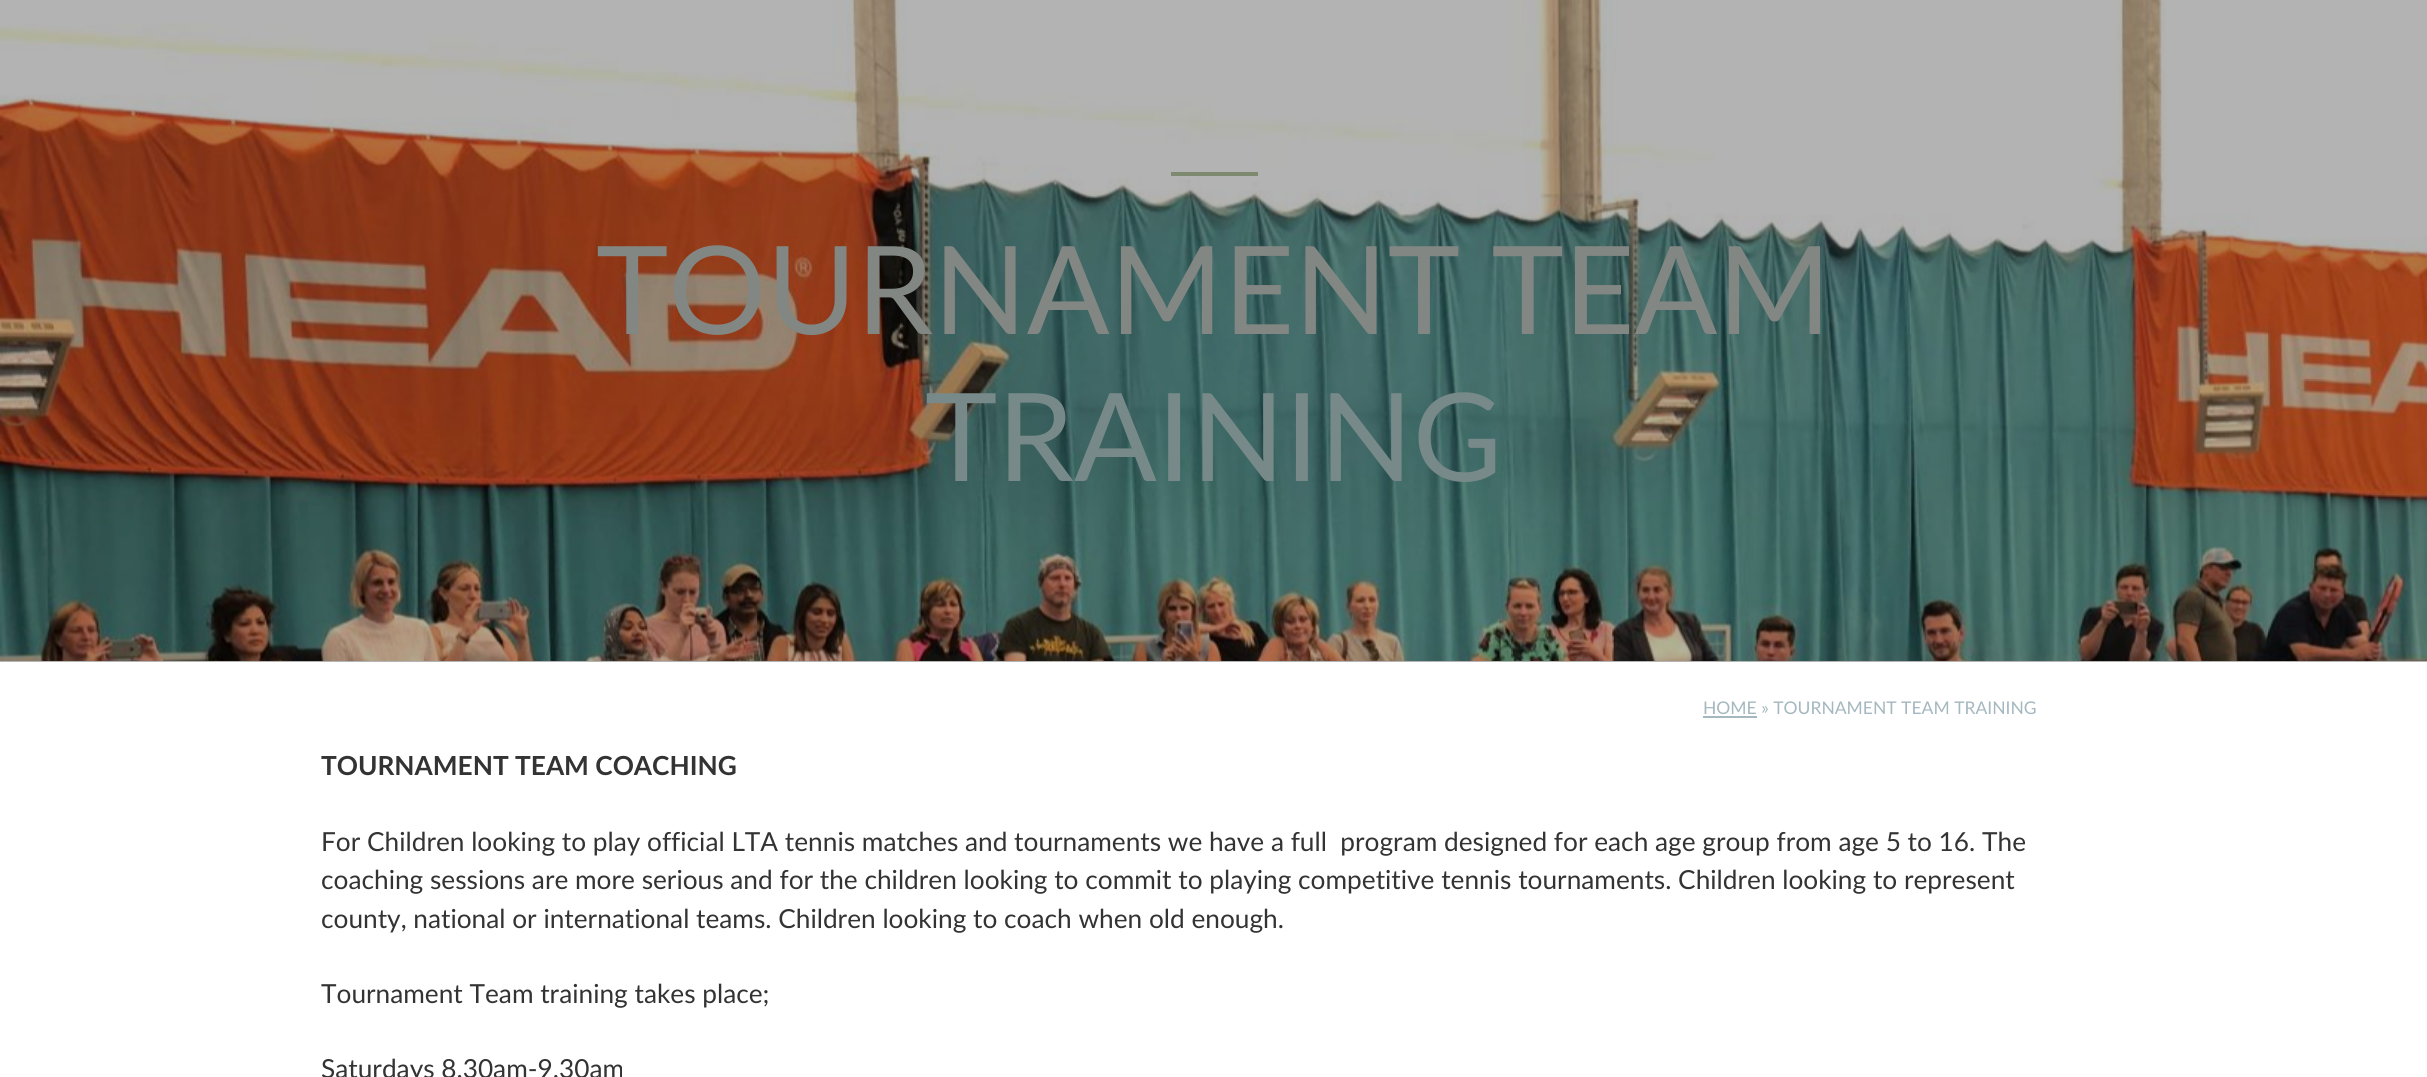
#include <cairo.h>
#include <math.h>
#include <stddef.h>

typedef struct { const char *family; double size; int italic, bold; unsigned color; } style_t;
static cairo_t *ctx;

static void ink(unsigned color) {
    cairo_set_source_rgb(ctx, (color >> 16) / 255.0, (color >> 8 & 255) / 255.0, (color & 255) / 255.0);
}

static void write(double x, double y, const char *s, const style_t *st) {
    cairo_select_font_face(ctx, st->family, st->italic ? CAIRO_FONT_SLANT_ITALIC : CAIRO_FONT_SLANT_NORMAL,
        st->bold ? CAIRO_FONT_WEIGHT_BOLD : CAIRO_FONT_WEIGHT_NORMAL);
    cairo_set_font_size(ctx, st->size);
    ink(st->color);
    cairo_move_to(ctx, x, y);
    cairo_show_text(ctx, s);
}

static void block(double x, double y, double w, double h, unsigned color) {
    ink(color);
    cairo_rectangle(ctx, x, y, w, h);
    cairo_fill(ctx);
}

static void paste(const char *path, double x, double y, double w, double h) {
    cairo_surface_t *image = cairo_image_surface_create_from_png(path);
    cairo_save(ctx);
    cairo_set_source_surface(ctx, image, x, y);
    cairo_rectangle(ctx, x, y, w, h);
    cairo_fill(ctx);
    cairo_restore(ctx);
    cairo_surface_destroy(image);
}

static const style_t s1 = {"Lato", 122.5, 0, 0, 0x828783};
static const style_t s2 = {"Lato", 122.5, 0, 0, 0x778a89};
static const style_t s3 = {"Lato", 17.5, 0, 0, 0xa5b7bf};
static const style_t s4 = {"Lato", 26.25, 0, 1, 0x333333};
static const style_t s5 = {"Lato", 26.25, 0, 0, 0x333333};

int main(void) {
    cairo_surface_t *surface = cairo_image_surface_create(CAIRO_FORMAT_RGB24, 2427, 1077);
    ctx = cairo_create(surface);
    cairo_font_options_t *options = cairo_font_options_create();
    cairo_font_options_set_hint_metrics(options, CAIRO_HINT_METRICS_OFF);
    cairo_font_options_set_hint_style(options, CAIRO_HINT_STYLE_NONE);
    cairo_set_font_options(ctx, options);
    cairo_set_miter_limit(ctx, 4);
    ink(0xffffff);
    cairo_paint(ctx);
    block(0, 661, 2427, 1, 0xb3b3b3);
    paste("pic1.png", 0, 0, 2427, 661);
    block(1171, 172, 87, 4, 0x7d8a70);
    write(596, 334, "TOURNAMENT TEAM", &s1);
    write(925, 481, "TRAINING", &s2);
    write(1703, 714, "HOME » TOURNAMENT TEAM TRAINING", &s3);
    block(1703, 716, 54, 2, 0xa5b7bf);
    write(321, 775, "TOURNAMENT TEAM COACHING", &s4);
    write(321, 851, "For Children looking to play official LTA tennis matches and tournaments we have a full  program designed for each age group from age 5 to 16. The", &s5);
    write(321, 889, "coaching sessions are more serious and for the children looking to commit to playing competitive tennis tournaments. Children looking to represent", &s5);
    write(321, 928, "county, national or international teams. Children looking to coach when old enough.", &s5);
    write(321, 1003, "Tournament Team training takes place;", &s5);
    write(321, 1078, "Saturdays 8.30am-9.30am", &s5);
    cairo_surface_write_to_png(surface, "screenshot.png");
    cairo_font_options_destroy(options);
    cairo_destroy(ctx);
    cairo_surface_destroy(surface);
    return 0;
}
